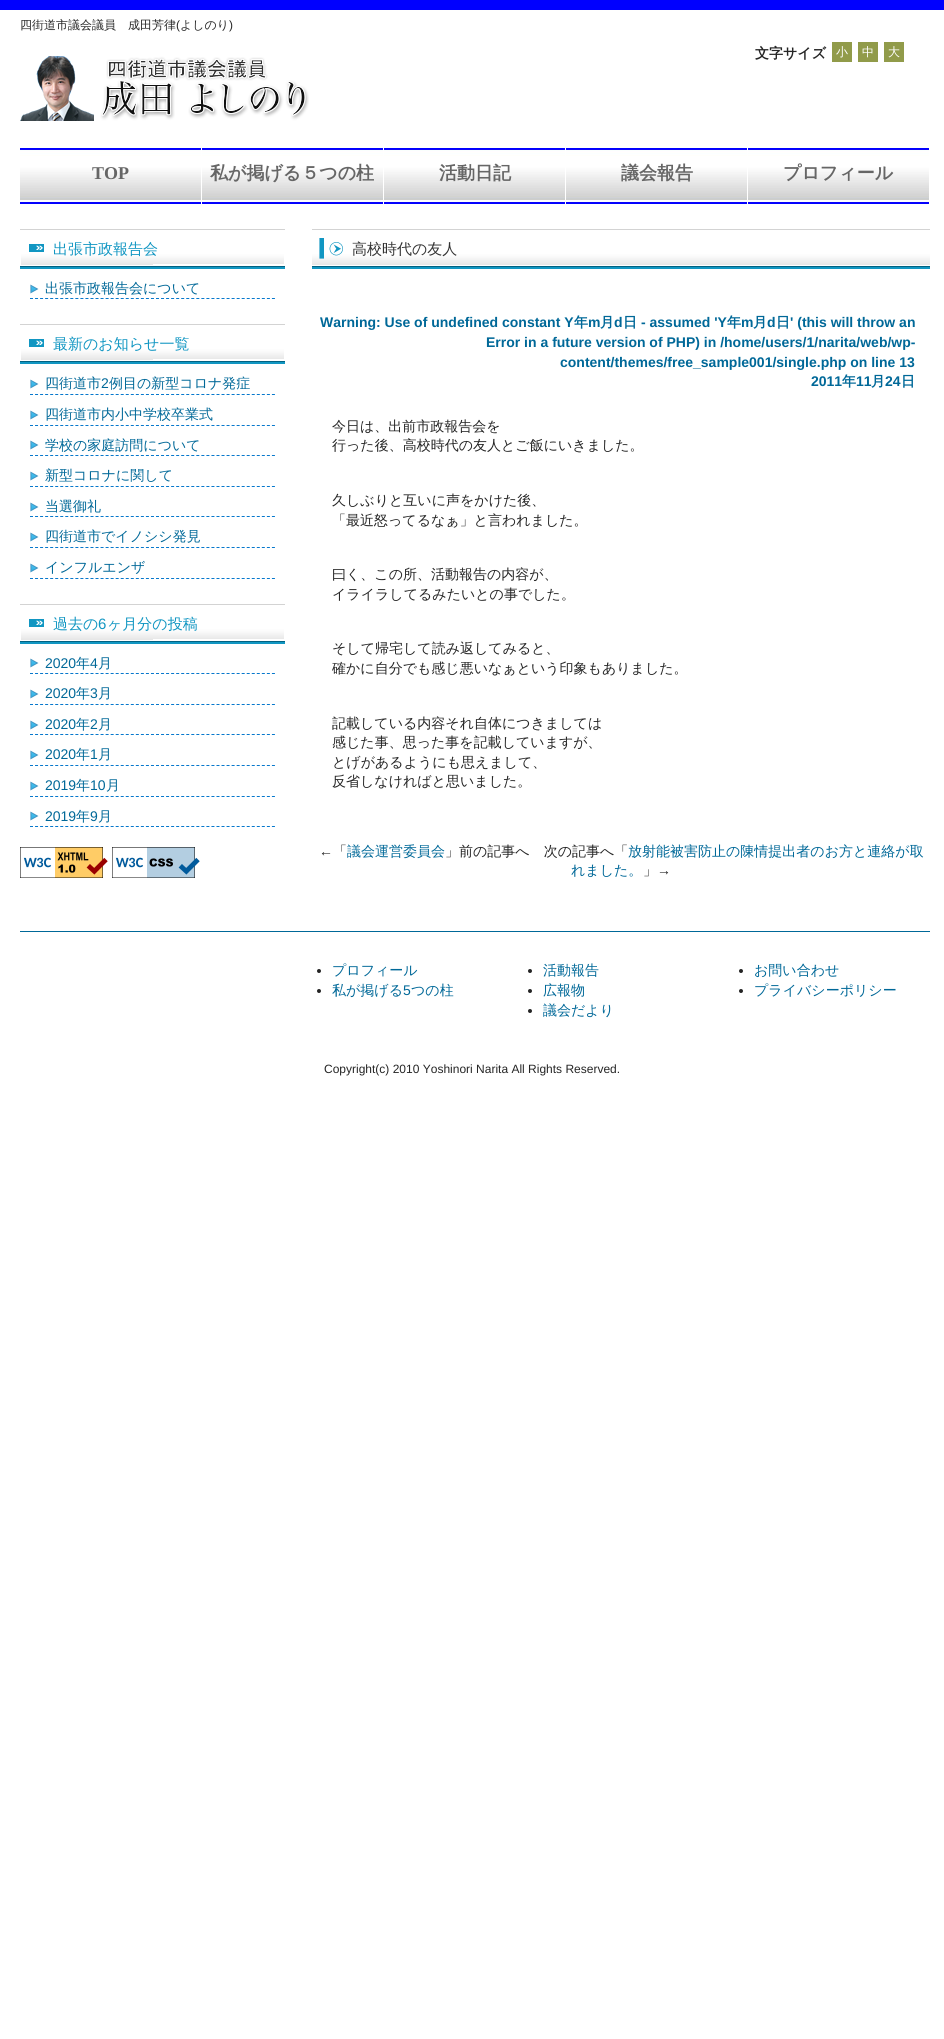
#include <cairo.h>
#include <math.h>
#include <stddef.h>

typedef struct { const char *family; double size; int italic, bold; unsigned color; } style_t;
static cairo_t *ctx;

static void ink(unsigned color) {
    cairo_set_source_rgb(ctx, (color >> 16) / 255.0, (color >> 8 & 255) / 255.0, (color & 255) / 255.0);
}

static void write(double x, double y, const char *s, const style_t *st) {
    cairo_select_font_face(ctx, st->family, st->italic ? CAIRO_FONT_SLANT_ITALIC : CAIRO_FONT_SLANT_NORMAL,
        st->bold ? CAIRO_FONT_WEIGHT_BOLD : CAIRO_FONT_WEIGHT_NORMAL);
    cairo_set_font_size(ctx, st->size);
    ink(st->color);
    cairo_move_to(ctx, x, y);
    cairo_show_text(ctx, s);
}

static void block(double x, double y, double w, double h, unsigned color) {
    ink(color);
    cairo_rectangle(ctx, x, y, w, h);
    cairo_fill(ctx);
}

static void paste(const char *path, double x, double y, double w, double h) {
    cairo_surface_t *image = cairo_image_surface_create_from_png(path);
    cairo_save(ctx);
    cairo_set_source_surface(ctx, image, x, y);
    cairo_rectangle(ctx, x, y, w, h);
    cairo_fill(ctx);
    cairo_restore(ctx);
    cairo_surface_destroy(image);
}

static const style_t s1 = {"WenQuanYi Zen Hei Medium", 12, 0, 0, 0x252525};
static const style_t s2 = {"Liberation Sans", 12, 0, 0, 0x252525};
static const style_t s3 = {"WenQuanYi Zen Hei", 14, 0, 1, 0x252525};
static const style_t s4 = {"WenQuanYi Zen Hei Medium", 12, 0, 0, 0xffffff};
static const style_t s5 = {"Liberation Serif", 18, 0, 1, 0x666666};
static const style_t s6 = {"WenQuanYi Zen Hei", 18, 0, 1, 0x666666};
static const style_t s7 = {"WenQuanYi Zen Hei Medium", 15, 0, 0, 0x1196c2};
static const style_t s8 = {"WenQuanYi Zen Hei Medium", 14, 0, 0, 0x006898};
static const style_t s9 = {"Liberation Sans", 14, 0, 0, 0x006898};
static const style_t s10 = {"Liberation Sans", 15, 0, 0, 0x1196c2};
static const style_t s11 = {"WenQuanYi Zen Hei Medium", 15, 0, 0, 0x333333};
static const style_t s12 = {"Liberation Sans", 14, 0, 1, 0x006898};
static const style_t s13 = {"WenQuanYi Zen Hei", 14, 0, 1, 0x006898};
static const style_t s14 = {"WenQuanYi Zen Hei Medium", 14, 0, 0, 0x252525};
static const style_t s15 = {"Liberation Sans", 14, 0, 0, 0x252525};

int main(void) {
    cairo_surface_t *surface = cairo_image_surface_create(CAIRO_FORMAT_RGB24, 944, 2039);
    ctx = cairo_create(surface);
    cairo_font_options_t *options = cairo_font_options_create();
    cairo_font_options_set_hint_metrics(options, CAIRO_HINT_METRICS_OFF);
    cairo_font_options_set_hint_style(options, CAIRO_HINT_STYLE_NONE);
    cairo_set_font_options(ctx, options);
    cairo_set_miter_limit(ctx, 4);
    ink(0xffffff);
    cairo_paint(ctx);
    block(0, 0, 944, 10, 0x0000ff);
    write(20, 29, "四街道市議会議員　成田芳律", &s1);
    write(176, 29, "(", &s2);
    write(180, 29, "よしのり", &s1);
    write(229, 29, ")", &s2);
    write(755, 58, "文字サイズ", &s3);
    block(832, 42, 20, 20, 0x919b4a);
    write(836, 56, "小", &s4);
    block(858, 42, 20, 20, 0x919b4a);
    write(862, 56, "中", &s4);
    block(884, 42, 20, 20, 0x919b4a);
    write(888, 56, "大", &s4);
    paste("pic1.png", 20, 56, 289, 65);
    paste("pic2.png", 20, 148, 181, 56);
    write(92, 179, "TOP", &s5);
    paste("pic2.png", 202, 148, 181, 56);
    write(210, 179, "私が掲げる５つの柱", &s6);
    paste("pic2.png", 384, 148, 181, 56);
    write(439, 179, "活動日記", &s6);
    paste("pic2.png", 566, 148, 181, 56);
    write(621, 179, "議会報告", &s6);
    paste("pic2.png", 748, 148, 181, 56);
    write(783, 179, "プロフィール", &s6);
    paste("pic3.png", 20, 229, 265, 40);
    write(53, 254, "出張市政報告会", &s7);
    cairo_new_path(ctx);
    cairo_move_to(ctx, 30, 298.5);
    cairo_line_to(ctx, 275, 298.5);
    ink(0x0778cc);
    cairo_set_line_width(ctx, 1);
    cairo_set_dash(ctx, (double[]){3, 2.04}, 2, 0);
    cairo_stroke(ctx);
    paste("pic4.png", 30, 284, 9, 10);
    write(45, 293, "出張市政報告会について", &s8);
    paste("pic3.png", 20, 324, 265, 40);
    write(53, 349, "最新のお知らせ一覧", &s7);
    cairo_new_path(ctx);
    cairo_move_to(ctx, 30, 394.5);
    cairo_line_to(ctx, 275, 394.5);
    ink(0x0778cc);
    cairo_stroke(ctx);
    paste("pic4.png", 30, 379, 9, 10);
    write(45, 388, "四街道市", &s8);
    write(101, 388, "2", &s9);
    write(109, 388, "例目の新型コロナ発症", &s8);
    cairo_new_path(ctx);
    cairo_move_to(ctx, 30, 425.5);
    cairo_line_to(ctx, 275, 425.5);
    ink(0x0778cc);
    cairo_stroke(ctx);
    paste("pic4.png", 30, 410, 9, 10);
    write(45, 419, "四街道市内小中学校卒業式", &s8);
    cairo_new_path(ctx);
    cairo_move_to(ctx, 30, 455.5);
    cairo_line_to(ctx, 275, 455.5);
    ink(0x0778cc);
    cairo_stroke(ctx);
    paste("pic4.png", 30, 440, 9, 10);
    write(45, 450, "学校の家庭訪問について", &s8);
    cairo_new_path(ctx);
    cairo_move_to(ctx, 30, 486.5);
    cairo_line_to(ctx, 275, 486.5);
    ink(0x0778cc);
    cairo_stroke(ctx);
    paste("pic4.png", 30, 471, 9, 10);
    write(45, 480, "新型コロナに関して", &s8);
    cairo_new_path(ctx);
    cairo_move_to(ctx, 30, 516.5);
    cairo_line_to(ctx, 275, 516.5);
    ink(0x0778cc);
    cairo_stroke(ctx);
    paste("pic4.png", 30, 502, 9, 10);
    write(45, 511, "当選御礼", &s8);
    cairo_new_path(ctx);
    cairo_move_to(ctx, 30, 547.5);
    cairo_line_to(ctx, 275, 547.5);
    ink(0x0778cc);
    cairo_stroke(ctx);
    paste("pic4.png", 30, 532, 9, 10);
    write(45, 541, "四街道市でイノシシ発見", &s8);
    cairo_new_path(ctx);
    cairo_move_to(ctx, 30, 578.5);
    cairo_line_to(ctx, 275, 578.5);
    ink(0x0778cc);
    cairo_stroke(ctx);
    paste("pic4.png", 30, 563, 9, 10);
    write(45, 572, "インフルエンザ", &s8);
    paste("pic3.png", 20, 604, 265, 40);
    write(53, 629, "過去の", &s7);
    write(98, 629, "6", &s10);
    write(107, 629, "ヶ月分の投稿", &s7);
    cairo_new_path(ctx);
    cairo_move_to(ctx, 30, 673.5);
    cairo_line_to(ctx, 275, 673.5);
    ink(0x0778cc);
    cairo_stroke(ctx);
    paste("pic4.png", 30, 658, 9, 10);
    write(45, 668, "2020", &s9);
    write(76, 668, "年", &s8);
    write(90, 668, "4", &s9);
    write(98, 668, "月", &s8);
    cairo_new_path(ctx);
    cairo_move_to(ctx, 30, 704.5);
    cairo_line_to(ctx, 275, 704.5);
    ink(0x0778cc);
    cairo_stroke(ctx);
    paste("pic4.png", 30, 689, 9, 10);
    write(45, 698, "2020", &s9);
    write(76, 698, "年", &s8);
    write(90, 698, "3", &s9);
    write(98, 698, "月", &s8);
    cairo_new_path(ctx);
    cairo_move_to(ctx, 30, 734.5);
    cairo_line_to(ctx, 275, 734.5);
    ink(0x0778cc);
    cairo_stroke(ctx);
    paste("pic4.png", 30, 720, 9, 10);
    write(45, 729, "2020", &s9);
    write(76, 729, "年", &s8);
    write(90, 729, "2", &s9);
    write(98, 729, "月", &s8);
    cairo_new_path(ctx);
    cairo_move_to(ctx, 30, 765.5);
    cairo_line_to(ctx, 275, 765.5);
    ink(0x0778cc);
    cairo_stroke(ctx);
    paste("pic4.png", 30, 750, 9, 10);
    write(45, 759, "2020", &s9);
    write(76, 759, "年", &s8);
    write(90, 759, "1", &s9);
    write(98, 759, "月", &s8);
    cairo_new_path(ctx);
    cairo_move_to(ctx, 30, 796.5);
    cairo_line_to(ctx, 275, 796.5);
    ink(0x0778cc);
    cairo_stroke(ctx);
    paste("pic4.png", 30, 781, 9, 10);
    write(45, 790, "2019", &s9);
    write(76, 790, "年", &s8);
    write(90, 790, "10", &s9);
    write(106, 790, "月", &s8);
    cairo_new_path(ctx);
    cairo_move_to(ctx, 30, 826.5);
    cairo_line_to(ctx, 275, 826.5);
    ink(0x0778cc);
    cairo_stroke(ctx);
    paste("pic4.png", 30, 811, 9, 10);
    write(45, 821, "2019", &s9);
    write(76, 821, "年", &s8);
    write(90, 821, "9", &s9);
    write(98, 821, "月", &s8);
    paste("pic5.png", 20, 847, 88, 31);
    paste("pic6.png", 112, 847, 88, 31);
    paste("pic7.png", 312, 229, 618, 40);
    write(352, 254, "高校時代の友人", &s11);
    write(320, 327, "Warning: Use of undefined constant Y", &s12);
    write(574, 327, "年", &s13);
    write(588, 327, "m", &s12);
    write(600, 327, "月", &s13);
    write(614, 327, "d", &s12);
    write(623, 327, "日", &s13);
    write(641, 327, "- assumed 'Y", &s12);
    write(727, 327, "年", &s13);
    write(741, 327, "m", &s12);
    write(753, 327, "月", &s13);
    write(767, 327, "d", &s12);
    write(776, 327, "日", &s13);
    write(790, 327, "' (this will throw an", &s12);
    write(486, 347, "Error in a future version of PHP) in /home/users/1/narita/web/wp-", &s12);
    write(560, 367, "content/themes/free_sample001/single.php on line 13", &s12);
    write(811, 386, "2011", &s12);
    write(842, 386, "年", &s13);
    write(856, 386, "11", &s12);
    write(871, 386, "月", &s13);
    write(885, 386, "24", &s12);
    write(901, 386, "日", &s13);
    write(332, 431, "今日は、出前市政報告会を", &s14);
    write(332, 450, "行った後、高校時代の友人とご飯にいきました。", &s14);
    write(332, 505, "久しぶりと互いに声をかけた後、", &s14);
    write(332, 525, "「最近怒ってるなぁ」と言われました。", &s14);
    write(332, 579, "曰く、この所、活動報告の内容が、", &s14);
    write(332, 599, "イライラしてるみたいとの事でした。", &s14);
    write(332, 653, "そして帰宅して読み返してみると、", &s14);
    write(332, 673, "確かに自分でも感じ悪いなぁという印象もありました。", &s14);
    write(332, 728, "記載している内容それ自体につきましては", &s14);
    write(332, 747, "感じた事、思った事を記載していますが、", &s14);
    write(332, 767, "とげがあるようにも思えまして、", &s14);
    write(332, 786, "反省しなければと思いました。", &s14);
    write(319, 856, "←", &s15);
    write(333, 856, "「", &s14);
    write(347, 856, "議会運営委員会", &s8);
    write(445, 856, "」前の記事へ　次の記事へ「", &s14);
    write(628, 856, "放射能被害防止の陳情提出者のお方と連絡が取", &s8);
    write(571, 875, "れました。", &s8);
    write(643, 875, "」", &s14);
    write(657, 875, "→", &s15);
    block(20, 931, 910, 1, 0x006898);
    ink(0x252525);
    cairo_new_path(ctx);
    cairo_arc(ctx, 319, 971, 2, 0, 2 * M_PI);
    cairo_fill(ctx);
    write(332, 975, "プロフィール", &s8);
    ink(0x252525);
    cairo_new_path(ctx);
    cairo_arc(ctx, 319, 991, 2, 0, 2 * M_PI);
    cairo_fill(ctx);
    write(332, 995, "私が掲げる", &s8);
    write(403, 995, "5", &s9);
    write(411, 995, "つの柱", &s8);
    ink(0x252525);
    cairo_new_path(ctx);
    cairo_arc(ctx, 530, 971, 2, 0, 2 * M_PI);
    cairo_fill(ctx);
    write(543, 975, "活動報告", &s8);
    ink(0x252525);
    cairo_new_path(ctx);
    cairo_arc(ctx, 530, 991, 2, 0, 2 * M_PI);
    cairo_fill(ctx);
    write(543, 995, "広報物", &s8);
    ink(0x252525);
    cairo_new_path(ctx);
    cairo_arc(ctx, 530, 1011, 2, 0, 2 * M_PI);
    cairo_fill(ctx);
    write(543, 1015, "議会だより", &s8);
    ink(0x252525);
    cairo_new_path(ctx);
    cairo_arc(ctx, 741, 971, 2, 0, 2 * M_PI);
    cairo_fill(ctx);
    write(754, 975, "お問い合わせ", &s8);
    ink(0x252525);
    cairo_new_path(ctx);
    cairo_arc(ctx, 741, 991, 2, 0, 2 * M_PI);
    cairo_fill(ctx);
    write(754, 995, "プライバシーポリシー", &s8);
    write(324, 1073, "Copyright(c) 2010 Yoshinori Narita All Rights Reserved.", &s2);
    cairo_surface_write_to_png(surface, "screenshot.png");
    cairo_font_options_destroy(options);
    cairo_destroy(ctx);
    cairo_surface_destroy(surface);
    return 0;
}
